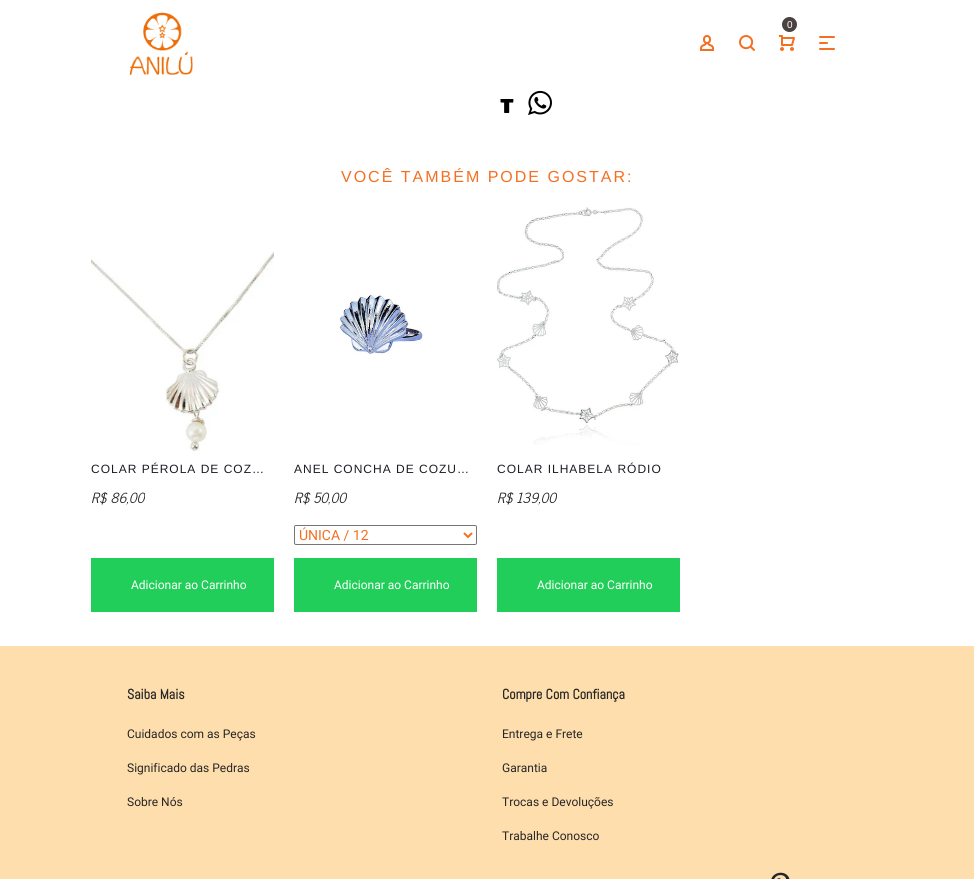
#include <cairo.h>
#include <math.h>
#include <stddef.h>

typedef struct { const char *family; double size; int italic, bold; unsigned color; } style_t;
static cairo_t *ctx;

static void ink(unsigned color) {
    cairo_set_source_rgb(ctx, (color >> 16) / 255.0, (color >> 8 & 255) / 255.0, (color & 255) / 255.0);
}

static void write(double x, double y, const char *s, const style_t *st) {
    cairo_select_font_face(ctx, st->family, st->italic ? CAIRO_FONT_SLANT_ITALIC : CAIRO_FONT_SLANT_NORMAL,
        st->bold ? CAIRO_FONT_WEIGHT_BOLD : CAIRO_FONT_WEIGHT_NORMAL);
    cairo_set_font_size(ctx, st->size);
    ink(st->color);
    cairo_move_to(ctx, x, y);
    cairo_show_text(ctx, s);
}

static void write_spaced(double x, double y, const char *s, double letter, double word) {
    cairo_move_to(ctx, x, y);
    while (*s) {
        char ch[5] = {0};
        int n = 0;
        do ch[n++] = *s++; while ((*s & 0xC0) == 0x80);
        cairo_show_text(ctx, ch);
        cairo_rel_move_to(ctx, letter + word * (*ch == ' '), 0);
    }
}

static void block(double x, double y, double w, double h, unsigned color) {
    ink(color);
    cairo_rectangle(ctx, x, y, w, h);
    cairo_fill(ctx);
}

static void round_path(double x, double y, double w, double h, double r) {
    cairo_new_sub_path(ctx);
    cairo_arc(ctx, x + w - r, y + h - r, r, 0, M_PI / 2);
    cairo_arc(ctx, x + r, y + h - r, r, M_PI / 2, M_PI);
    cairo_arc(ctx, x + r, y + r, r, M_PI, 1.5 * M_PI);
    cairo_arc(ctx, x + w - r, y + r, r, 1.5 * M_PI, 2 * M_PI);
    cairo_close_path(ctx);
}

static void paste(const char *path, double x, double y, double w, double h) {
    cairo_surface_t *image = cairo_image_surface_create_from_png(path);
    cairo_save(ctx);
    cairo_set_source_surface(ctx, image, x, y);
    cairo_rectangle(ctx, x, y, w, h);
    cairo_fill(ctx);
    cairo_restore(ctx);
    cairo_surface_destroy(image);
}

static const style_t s1 = {"Liberation Sans", 10, 0, 0, 0xffffff};
static const style_t s2 = {"News Cycle", 14, 1, 0, 0x262626};
static const style_t s3 = {"Roboto", 12, 0, 0, 0xffffff};
static const style_t s4 = {"Roboto", 14, 0, 0, 0xf37021};
static const style_t s5 = {"Abel", 14, 0, 1, 0x262626};
static const style_t s6 = {"Roboto", 12, 0, 0, 0x262626};

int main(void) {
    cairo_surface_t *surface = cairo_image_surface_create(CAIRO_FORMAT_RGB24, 974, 879);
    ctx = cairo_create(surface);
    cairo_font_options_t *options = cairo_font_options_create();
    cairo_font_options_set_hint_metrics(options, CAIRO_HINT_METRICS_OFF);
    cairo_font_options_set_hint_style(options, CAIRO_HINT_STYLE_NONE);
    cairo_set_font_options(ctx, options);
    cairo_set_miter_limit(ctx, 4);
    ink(0xffffff);
    cairo_paint(ctx);
    paste("pic1.png", 129, 12, 64, 63);
    ink(0x4a4141);
    cairo_arc(ctx, 789.5, 24.5, 7.5, 0, 2 * M_PI);
    cairo_fill(ctx);
    write(787, 28, "0", &s1);
    paste("pic2.png", 779, 35, 16, 16);
    paste("pic3.png", 700, 35, 14, 16);
    paste("pic4.png", 739, 35, 16, 16);
    paste("pic5.png", 819, 36, 16, 14);
    paste("pic6.png", 500, 99, 14, 14);
    paste("pic7.png", 528, 90, 24, 25);
    cairo_set_font_size(ctx, 16);
    ink(0xf37021);
    write_spaced(341, 182, "VOCÊ TAMBÉM PODE GOSTAR:", 2, 0);
    paste("pic8.png", 91, 249, 183, 202);
    cairo_set_font_size(ctx, 12);
    ink(0x1a1d23);
    write_spaced(91, 473, "COLAR PÉROLA DE COZ…", 1, 0);
    write(91, 503, "R$ 86,00", &s2);
    block(91, 558, 183, 54, 0x22ce5a);
    write(131, 589, "Adicionar ao Carrinho", &s3);
    paste("pic9.png", 339, 294, 84, 60);
    cairo_select_font_face(ctx, "Liberation Sans", CAIRO_FONT_SLANT_NORMAL, CAIRO_FONT_WEIGHT_NORMAL);
    ink(0x1a1d23);
    write_spaced(294, 473, "ANEL CONCHA DE COZU…", 1, 0);
    write(294, 503, "R$ 50,00", &s2);
    round_path(294.5, 525.5, 182, 19, 1.5);
    ink(0x767676);
    cairo_set_line_width(ctx, 1);
    cairo_stroke(ctx);
    cairo_new_path(ctx);
    cairo_move_to(ctx, 464, 533);
    cairo_line_to(ctx, 468, 537);
    cairo_line_to(ctx, 472, 533);
    ink(0xf37021);
    cairo_set_line_width(ctx, 2);
    cairo_stroke(ctx);
    write(299, 540, "ÚNICA / 12", &s4);
    block(294, 558, 183, 54, 0x22ce5a);
    write(334, 589, "Adicionar ao Carrinho", &s3);
    paste("pic10.png", 497, 207, 182, 238);
    cairo_select_font_face(ctx, "Liberation Sans", CAIRO_FONT_SLANT_NORMAL, CAIRO_FONT_WEIGHT_NORMAL);
    ink(0x1a1d23);
    write_spaced(497, 473, "COLAR ILHABELA RÓDIO", 1, 0);
    write(497, 503, "R$ 139,00", &s2);
    block(497, 558, 183, 54, 0x22ce5a);
    write(537, 589, "Adicionar ao Carrinho", &s3);
    block(0, 646, 974, 233, 0xffdead);
    write(127, 699, "Saiba Mais", &s5);
    write(127, 738, "Cuidados com as Peças", &s6);
    write(127, 772, "Significado das Pedras", &s6);
    write(127, 806, "Sobre Nós", &s6);
    write(502, 699, "Compre Com Confiança", &s5);
    write(502, 738, "Entrega e Frete", &s6);
    write(502, 772, "Garantia", &s6);
    write(502, 806, "Trocas e Devoluções", &s6);
    write(502, 840, "Trabalhe Conosco", &s6);
    paste("pic11.png", 771, 872, 19, 7);
    cairo_surface_write_to_png(surface, "screenshot.png");
    cairo_font_options_destroy(options);
    cairo_destroy(ctx);
    cairo_surface_destroy(surface);
    return 0;
}
